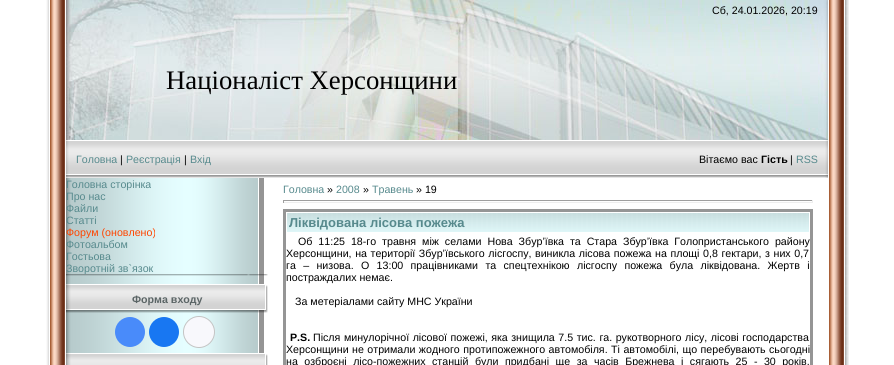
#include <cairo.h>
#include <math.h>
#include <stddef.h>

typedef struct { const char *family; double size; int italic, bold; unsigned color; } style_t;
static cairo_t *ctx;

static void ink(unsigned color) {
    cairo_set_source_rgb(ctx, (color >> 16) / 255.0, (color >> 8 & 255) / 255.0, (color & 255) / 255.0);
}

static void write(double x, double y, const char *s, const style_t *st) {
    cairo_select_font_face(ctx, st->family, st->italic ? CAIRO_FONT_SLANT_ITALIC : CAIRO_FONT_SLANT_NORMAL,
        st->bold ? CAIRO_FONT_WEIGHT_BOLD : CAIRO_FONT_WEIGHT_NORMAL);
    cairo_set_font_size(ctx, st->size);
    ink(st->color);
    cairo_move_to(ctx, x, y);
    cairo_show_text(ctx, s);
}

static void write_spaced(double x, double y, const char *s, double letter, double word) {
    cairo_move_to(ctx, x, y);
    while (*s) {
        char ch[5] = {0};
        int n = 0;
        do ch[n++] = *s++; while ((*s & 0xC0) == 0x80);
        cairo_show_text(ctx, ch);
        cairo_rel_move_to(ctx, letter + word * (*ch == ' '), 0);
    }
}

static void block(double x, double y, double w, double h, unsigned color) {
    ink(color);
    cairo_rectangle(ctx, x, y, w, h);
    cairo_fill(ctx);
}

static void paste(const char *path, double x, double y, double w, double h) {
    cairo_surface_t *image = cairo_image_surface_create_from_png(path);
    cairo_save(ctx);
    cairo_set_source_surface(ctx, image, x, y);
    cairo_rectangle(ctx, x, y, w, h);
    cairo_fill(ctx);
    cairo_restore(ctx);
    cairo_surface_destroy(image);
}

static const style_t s1 = {"Liberation Sans", 10.65, 0, 0, 0x000000};
static const style_t s2 = {"Liberation Serif", 26.75, 0, 0, 0x000000};
static const style_t s3 = {"Liberation Sans", 10.65, 0, 0, 0x578a8d};
static const style_t s4 = {"Liberation Sans", 10.65, 0, 1, 0x000000};
static const style_t s5 = {"Liberation Sans", 10.65, 0, 0, 0xff4500};
static const style_t s6 = {"Liberation Sans", 10.65, 0, 1, 0x5b6566};
static const style_t s7 = {"Liberation Sans", 13, 0, 1, 0x578a8d};

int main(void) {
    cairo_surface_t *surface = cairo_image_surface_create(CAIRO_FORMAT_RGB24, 894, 365);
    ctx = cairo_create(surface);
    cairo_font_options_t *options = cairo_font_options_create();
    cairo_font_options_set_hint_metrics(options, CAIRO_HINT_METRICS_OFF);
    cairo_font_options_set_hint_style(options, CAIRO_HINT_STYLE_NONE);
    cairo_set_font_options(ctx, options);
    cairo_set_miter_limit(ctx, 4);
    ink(0xffffff);
    cairo_paint(ctx);
    paste("pic1.png", 46, 0, 19, 365);
    paste("pic2.png", 66, 0, 762, 140);
    write(712, 14, "Сб, 24.01.2026, 20:19", &s1);
    write(166, 89, "Націоналіст Херсонщини", &s2);
    paste("pic3.png", 66, 140, 762, 38);
    write(76, 163, "Головна", &s3);
    write(120, 163, "|", &s1);
    write(126, 163, "Реєстрація", &s3);
    write(184, 163, "|", &s1);
    write(190, 163, "Вхід", &s3);
    write(699, 163, "Вітаємо вас", &s1);
    write(761, 163, "Гість", &s4);
    write(790, 163, "|", &s1);
    write(796, 163, "RSS", &s3);
    paste("pic4.png", 66, 178, 202, 175);
    write(66, 188, "Головна сторінка", &s3);
    write(66, 200, "Про нас", &s3);
    write(66, 212, "Файли", &s3);
    write(66, 224, "Статті", &s3);
    write(66, 236, "Форум (оновлено)", &s5);
    write(66, 248, "Фотоальбом", &s3);
    write(66, 260, "Гостьова", &s3);
    write(66, 272, "Зворотній зв`язок", &s3);
    paste("pic5.png", 66, 274, 202, 2);
    paste("pic6.png", 66, 284, 202, 29);
    write(132, 303, "Форма входу", &s6);
    ink(0x498bfa);
    cairo_new_path(ctx);
    cairo_arc(ctx, 130, 332, 15, 0, 2 * M_PI);
    cairo_fill(ctx);
    ink(0x1877f2);
    cairo_arc(ctx, 164, 332, 15, 0, 2 * M_PI);
    cairo_fill(ctx);
    ink(0xf8f8fc);
    cairo_arc(ctx, 199, 332, 15.5, 0, 2 * M_PI);
    cairo_fill_preserve(ctx);
    ink(0xc4c4c4);
    cairo_set_line_width(ctx, 1);
    cairo_stroke(ctx);
    paste("pic7.png", 66, 353, 202, 12);
    write(283, 193, "Головна", &s3);
    write(327, 193, "»", &s1);
    write(336, 193, "2008", &s3);
    write(363, 193, "»", &s1);
    write(372, 193, "Травень", &s3);
    write(416, 193, "» 19", &s1);
    block(283, 200, 530, 1, 0x9f9f9f);
    block(812, 200, 1, 3, 0xeeeeee);
    block(283, 202, 530, 1, 0xeeeeee);
    block(283, 200, 1, 3, 0x9f9f9f);
    block(283, 209, 530, 156, 0x959595);
    paste("pic8.png", 287, 213, 522, 19);
    cairo_rectangle(ctx, 286.5, 212.5, 523, 20);
    ink(0xffffff);
    cairo_stroke(ctx);
    write(289, 227, "Ліквідована лісова пожежа", &s7);
    block(286, 233, 524, 132, 0xffffff);
    cairo_select_font_face(ctx, "Liberation Sans", CAIRO_FONT_SLANT_NORMAL, CAIRO_FONT_WEIGHT_NORMAL);
    cairo_set_font_size(ctx, 10.65);
    ink(0x000000);
    write_spaced(298, 245, "Об 11:25 18-го травня між селами Нова Збур’ївка та Стара Збур’ївка Голопристанського району", 0, 3);
    write_spaced(286, 257, "Херсонщини, на території Збур’ївського лісгоспу, виникла лісова пожежа на площі 0,8 гектари, з них 0,7", 0, 0.6);
    write_spaced(286, 269, "га – низова. О 13:00 працівниками та спецтехнікою лісгоспу пожежа була ліквідована. Жертв і", 0, 4.4);
    write(286, 281, "постраждалих немає.", &s1);
    write(295, 305, "За метеріалами сайту МНС України", &s1);
    write(290, 341, "P.S.", &s4);
    cairo_select_font_face(ctx, "Liberation Sans", CAIRO_FONT_SLANT_NORMAL, CAIRO_FONT_WEIGHT_NORMAL);
    write_spaced(313, 341, "Після минулорічної лісової пожежі, яка знищила 7.5 тис. га. рукотворного лісу, лісові господарства", 0, 0.6);
    write_spaced(286, 353, "Херсонщини не отримали жодного протипожежного автомобіля. Ті автомобілі, що перебувають сьогодні", 0, 0.5);
    write_spaced(286, 365, "на озброєні лісо-пожежних станцій були придбані ще за часів Брежнева і сягають 25 - 30 років.", 0, 3.5);
    paste("pic9.png", 829, 0, 20, 365);
    cairo_surface_write_to_png(surface, "screenshot.png");
    cairo_font_options_destroy(options);
    cairo_destroy(ctx);
    cairo_surface_destroy(surface);
    return 0;
}
